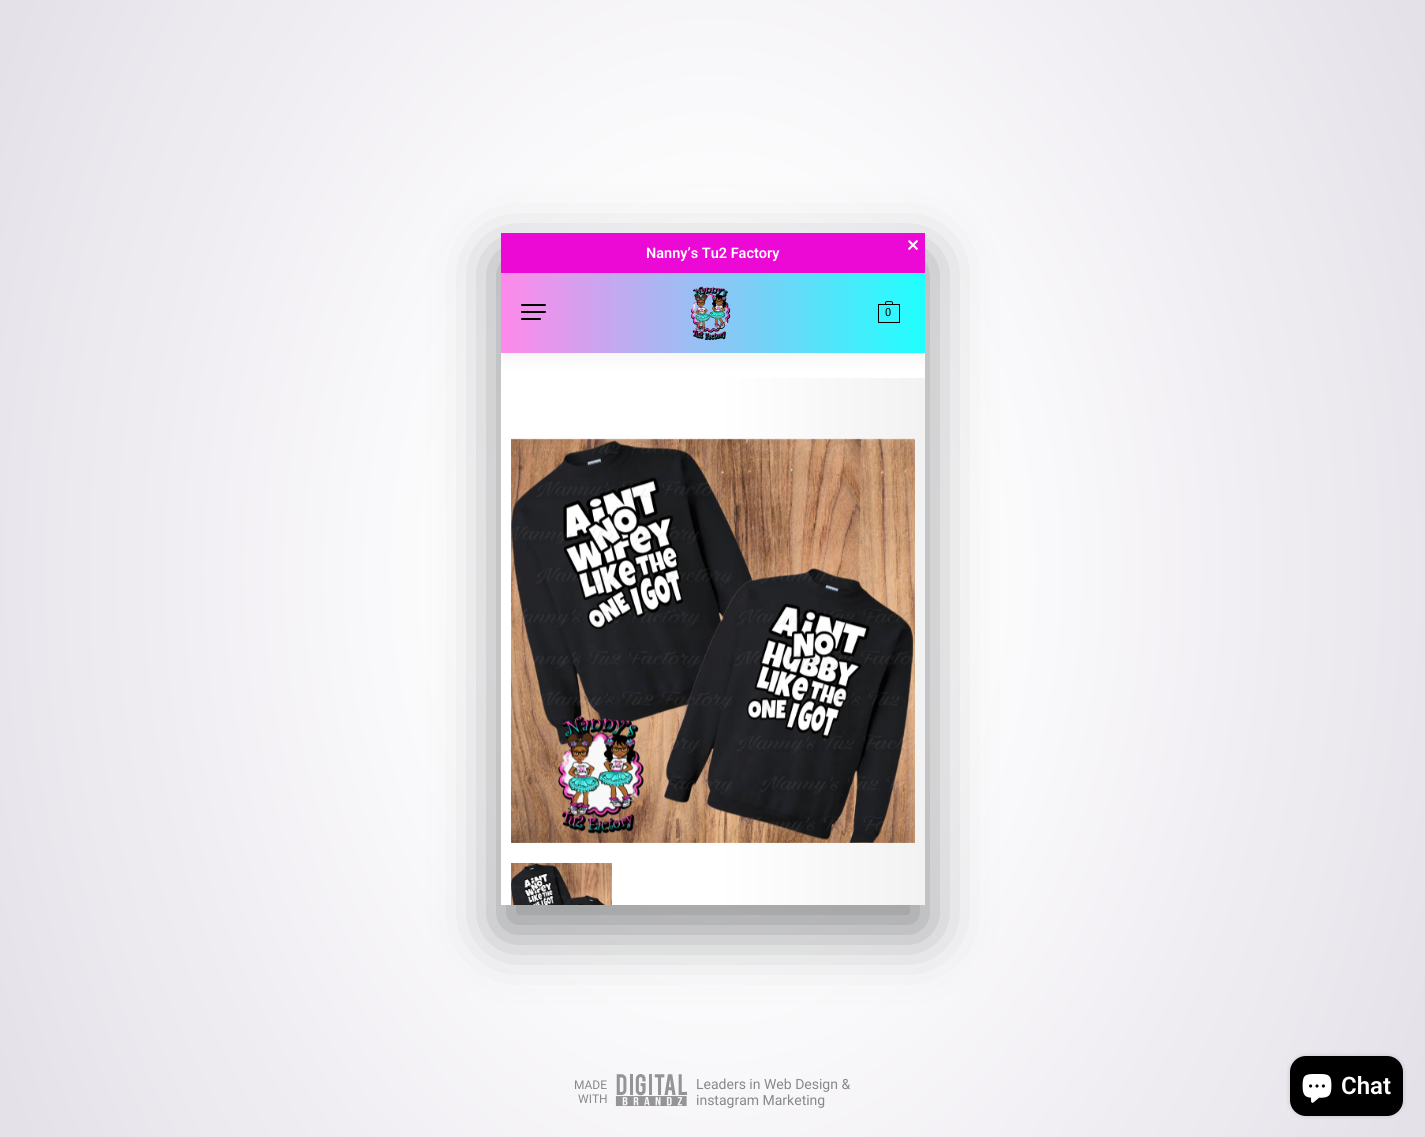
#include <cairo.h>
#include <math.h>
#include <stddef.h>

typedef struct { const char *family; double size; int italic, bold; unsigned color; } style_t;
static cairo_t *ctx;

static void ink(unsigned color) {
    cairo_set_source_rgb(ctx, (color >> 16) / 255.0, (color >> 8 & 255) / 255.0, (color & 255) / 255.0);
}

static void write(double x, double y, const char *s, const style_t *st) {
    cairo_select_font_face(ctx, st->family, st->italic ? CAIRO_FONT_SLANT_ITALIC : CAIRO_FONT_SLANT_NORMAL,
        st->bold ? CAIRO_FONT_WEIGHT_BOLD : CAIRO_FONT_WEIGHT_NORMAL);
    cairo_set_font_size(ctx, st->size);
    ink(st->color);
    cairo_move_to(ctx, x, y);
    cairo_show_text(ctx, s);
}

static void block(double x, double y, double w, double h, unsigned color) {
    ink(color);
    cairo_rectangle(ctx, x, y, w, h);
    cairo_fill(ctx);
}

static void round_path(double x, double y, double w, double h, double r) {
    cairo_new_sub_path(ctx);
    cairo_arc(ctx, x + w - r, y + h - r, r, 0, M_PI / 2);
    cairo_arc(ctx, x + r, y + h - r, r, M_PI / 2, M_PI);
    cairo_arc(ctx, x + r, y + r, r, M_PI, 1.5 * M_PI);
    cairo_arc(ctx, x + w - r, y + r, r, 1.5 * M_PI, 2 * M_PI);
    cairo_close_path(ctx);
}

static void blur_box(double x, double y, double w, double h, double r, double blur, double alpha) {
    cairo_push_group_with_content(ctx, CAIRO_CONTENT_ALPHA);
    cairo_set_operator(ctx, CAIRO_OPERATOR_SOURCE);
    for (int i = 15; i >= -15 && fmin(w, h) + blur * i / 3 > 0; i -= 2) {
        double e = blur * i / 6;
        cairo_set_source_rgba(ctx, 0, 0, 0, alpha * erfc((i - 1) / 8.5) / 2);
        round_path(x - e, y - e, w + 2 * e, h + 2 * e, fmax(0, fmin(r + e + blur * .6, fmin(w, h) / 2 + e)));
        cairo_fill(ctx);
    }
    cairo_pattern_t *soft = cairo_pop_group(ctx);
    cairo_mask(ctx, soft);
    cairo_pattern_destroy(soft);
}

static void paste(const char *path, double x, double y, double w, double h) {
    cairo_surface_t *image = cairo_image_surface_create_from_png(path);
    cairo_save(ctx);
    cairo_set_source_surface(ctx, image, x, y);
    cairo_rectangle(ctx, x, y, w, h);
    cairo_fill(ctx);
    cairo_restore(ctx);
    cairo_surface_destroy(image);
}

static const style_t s1 = {"Roboto SemiBold", 14.5, 0, 0, 0xffffff};
static const style_t s2 = {"Roboto", 11, 0, 0, 0x000000};
static const style_t s3 = {"Roboto", 12, 0, 0, 0x888888};
static const style_t s4 = {"Roboto", 14, 0, 0, 0x888888};
static const style_t s5 = {"Roboto SemiBold", 24, 0, 0, 0xffffff};

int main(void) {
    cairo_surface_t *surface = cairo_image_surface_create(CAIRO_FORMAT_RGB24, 1425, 1137);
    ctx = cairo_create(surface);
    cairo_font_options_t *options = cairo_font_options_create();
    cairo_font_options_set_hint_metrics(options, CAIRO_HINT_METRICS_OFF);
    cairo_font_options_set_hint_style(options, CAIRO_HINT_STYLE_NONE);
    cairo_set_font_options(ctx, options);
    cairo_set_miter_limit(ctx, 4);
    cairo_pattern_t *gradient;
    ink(0xffffff);
    cairo_paint(ctx);
    gradient = cairo_pattern_create_radial(0, 0, 0, 0, 0, 1);
    cairo_pattern_set_matrix(gradient, &(cairo_matrix_t){1.0 / 798, 0, 0, 1.0 / 1137, -1.0 * 713 / 798, -1.0 * 569 / 1137});
    cairo_pattern_add_color_stop_rgba(gradient, 0.25, 1, 1, 1, 1);
    cairo_pattern_add_color_stop_rgba(gradient, 1, 0.898, 0.882, 0.914, 1);
    cairo_set_source(ctx, gradient);
    cairo_pattern_destroy(gradient);
    cairo_rectangle(ctx, 0, 0, 1425, 1137);
    cairo_fill(ctx);
    ink(0x191d21);
    blur_box(501, 258, 424, 672, 0, 30, 0.5);
    block(501, 353, 424, 25, 0xffffff);
    gradient = cairo_pattern_create_linear(501, 1001, 925, 1001);
    cairo_pattern_add_color_stop_rgba(gradient, 0, 1, 1, 1, 1);
    cairo_pattern_add_color_stop_rgba(gradient, 0.51, 1, 1, 1, 1);
    cairo_pattern_add_color_stop_rgba(gradient, 1, 0.949, 0.949, 0.949, 1);
    cairo_set_source(ctx, gradient);
    cairo_pattern_destroy(gradient);
    cairo_rectangle(ctx, 501, 378, 424, 527);
    cairo_fill(ctx);
    cairo_save(ctx);
    cairo_rectangle(ctx, 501, 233, 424, 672);
    cairo_clip(ctx);
    ink(0x000000);
    blur_box(502, 274, 424, 80, 0, 12, 0.07);
    cairo_restore(ctx);
    block(501, 233, 424, 40, 0xed09d5);
    paste("pic1.png", 908, 240, 10, 10);
    write(646, 258, "Nanny’s Tu2 Factory", &s1);
    gradient = cairo_pattern_create_linear(501, 313, 925, 313);
    cairo_pattern_add_color_stop_rgba(gradient, 0, 1, 0.537, 0.918, 1);
    cairo_pattern_add_color_stop_rgba(gradient, 1, 0.125, 1, 1, 1);
    cairo_set_source(ctx, gradient);
    cairo_pattern_destroy(gradient);
    cairo_rectangle(ctx, 501, 273, 424, 80);
    cairo_fill(ctx);
    ink(0x000000);
    round_path(521, 304, 25, 2, 1);
    cairo_fill(ctx);
    round_path(521, 311, 25, 2, 1);
    cairo_fill(ctx);
    round_path(521, 318, 20, 2, 1);
    cairo_fill(ctx);
    paste("pic2.png", 691, 286, 40, 55);
    write(885, 316, "0", &s2);
    paste("pic3.png", 878, 301, 22, 22);
    paste("pic4.png", 511, 438, 404, 405);
    paste("pic5.png", 511, 863, 101, 42);
    write(574, 1089, "MADE", &s3);
    write(578, 1103, "WITH", &s3);
    paste("pic6.png", 615, 1074, 73, 32);
    write(696, 1089, "Leaders in Web Design &", &s4);
    write(696, 1105, "instagram Marketing", &s4);
    ink(0x000000);
    blur_box(1290, 1056, 113, 60, 16, 2.5, 0.15);
    ink(0x000000);
    round_path(1290, 1056, 113, 60, 16);
    cairo_fill(ctx);
    paste("pic7.png", 1302, 1074, 30, 29);
    write(1341, 1094, "Chat", &s5);
    cairo_surface_write_to_png(surface, "screenshot.png");
    cairo_font_options_destroy(options);
    cairo_destroy(ctx);
    cairo_surface_destroy(surface);
    return 0;
}
